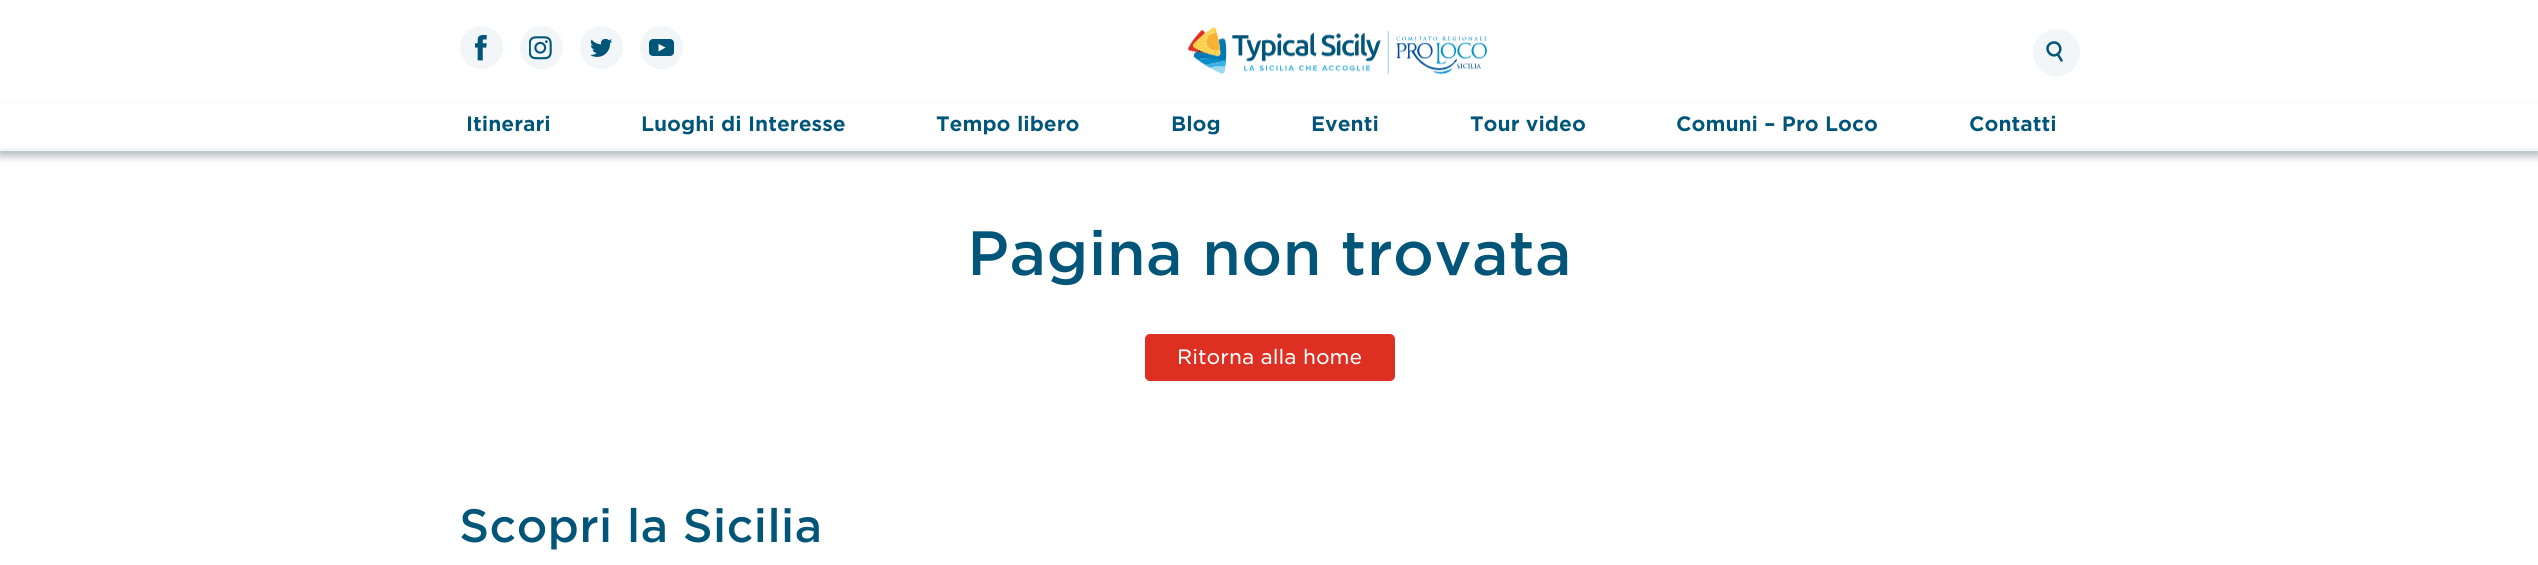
#include <cairo.h>
#include <math.h>
#include <stddef.h>

typedef struct { const char *family; double size; int italic, bold; unsigned color; } style_t;
static cairo_t *ctx;

static void ink(unsigned color) {
    cairo_set_source_rgb(ctx, (color >> 16) / 255.0, (color >> 8 & 255) / 255.0, (color & 255) / 255.0);
}

static void write(double x, double y, const char *s, const style_t *st) {
    cairo_select_font_face(ctx, st->family, st->italic ? CAIRO_FONT_SLANT_ITALIC : CAIRO_FONT_SLANT_NORMAL,
        st->bold ? CAIRO_FONT_WEIGHT_BOLD : CAIRO_FONT_WEIGHT_NORMAL);
    cairo_set_font_size(ctx, st->size);
    ink(st->color);
    cairo_move_to(ctx, x, y);
    cairo_show_text(ctx, s);
}

static void block(double x, double y, double w, double h, unsigned color) {
    ink(color);
    cairo_rectangle(ctx, x, y, w, h);
    cairo_fill(ctx);
}

static void round_path(double x, double y, double w, double h, double r) {
    cairo_new_sub_path(ctx);
    cairo_arc(ctx, x + w - r, y + h - r, r, 0, M_PI / 2);
    cairo_arc(ctx, x + r, y + h - r, r, M_PI / 2, M_PI);
    cairo_arc(ctx, x + r, y + r, r, M_PI, 1.5 * M_PI);
    cairo_arc(ctx, x + w - r, y + r, r, 1.5 * M_PI, 2 * M_PI);
    cairo_close_path(ctx);
}

static void blur_box(double x, double y, double w, double h, double r, double blur, double alpha) {
    cairo_push_group_with_content(ctx, CAIRO_CONTENT_ALPHA);
    cairo_set_operator(ctx, CAIRO_OPERATOR_SOURCE);
    for (int i = 15; i >= -15 && fmin(w, h) + blur * i / 3 > 0; i -= 2) {
        double e = blur * i / 6;
        cairo_set_source_rgba(ctx, 0, 0, 0, alpha * erfc((i - 1) / 8.5) / 2);
        round_path(x - e, y - e, w + 2 * e, h + 2 * e, fmax(0, fmin(r + e + blur * .6, fmin(w, h) / 2 + e)));
        cairo_fill(ctx);
    }
    cairo_pattern_t *soft = cairo_pop_group(ctx);
    cairo_mask(ctx, soft);
    cairo_pattern_destroy(soft);
}

static void paste(const char *path, double x, double y, double w, double h) {
    cairo_surface_t *image = cairo_image_surface_create_from_png(path);
    cairo_save(ctx);
    cairo_set_source_surface(ctx, image, x, y);
    cairo_rectangle(ctx, x, y, w, h);
    cairo_fill(ctx);
    cairo_restore(ctx);
    cairo_surface_destroy(image);
}

static const style_t s1 = {"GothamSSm", 20, 0, 1, 0x005578};
static const style_t s2 = {"GothamSSm Medium", 60, 0, 0, 0x005578};
static const style_t s3 = {"GothamSSm", 20, 0, 0, 0xffffff};
static const style_t s4 = {"GothamSSm Medium", 45, 0, 0, 0x005578};

int main(void) {
    cairo_surface_t *surface = cairo_image_surface_create(CAIRO_FORMAT_RGB24, 2538, 565);
    ctx = cairo_create(surface);
    cairo_font_options_t *options = cairo_font_options_create();
    cairo_font_options_set_hint_metrics(options, CAIRO_HINT_METRICS_OFF);
    cairo_font_options_set_hint_style(options, CAIRO_HINT_STYLE_NONE);
    cairo_set_font_options(ctx, options);
    cairo_set_miter_limit(ctx, 4);
    ink(0xffffff);
    cairo_paint(ctx);
    cairo_save(ctx);
    cairo_rectangle(ctx, 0, 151, 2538, 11);
    cairo_clip(ctx);
    ink(0x3a5059);
    blur_box(0, 5, 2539, 150, 0, 5, 0.25);
    cairo_restore(ctx);
    ink(0xf2f6f8);
    cairo_arc(ctx, 481.5, 47.5, 21.5, 0, 2 * M_PI);
    cairo_fill(ctx);
    paste("pic1.png", 475, 35, 12, 26);
    cairo_arc(ctx, 541.5, 47.5, 21.5, 0, 2 * M_PI);
    cairo_fill(ctx);
    paste("pic2.png", 529, 36, 23, 24);
    cairo_arc(ctx, 601.5, 47.5, 21.5, 0, 2 * M_PI);
    cairo_fill(ctx);
    paste("pic3.png", 590, 39, 23, 18);
    cairo_arc(ctx, 661.5, 47.5, 21.5, 0, 2 * M_PI);
    cairo_fill(ctx);
    ink(0x005578);
    round_path(649, 39, 25, 17, 4);
    cairo_fill(ctx);
    ink(0xffffff);
    cairo_new_path(ctx);
    cairo_move_to(ctx, 665.5, 47.5);
    cairo_line_to(ctx, 658.5, 51.5);
    cairo_line_to(ctx, 658.5, 44);
    cairo_close_path(ctx);
    cairo_fill(ctx);
    paste("pic4.png", 1188, 27, 299, 48);
    ink(0xf2f6f8);
    cairo_arc(ctx, 2056.5, 52.5, 23.5, 0, 2 * M_PI);
    cairo_fill(ctx);
    cairo_new_path(ctx);
    cairo_move_to(ctx, 2050.5, 43.5);
    cairo_curve_to(ctx, 2058, 39, 2064.5, 50, 2057, 54.5);
    cairo_curve_to(ctx, 2050, 58.5, 2043.5, 47.5, 2050.5, 43.5);
    cairo_close_path(ctx);
    ink(0x005578);
    cairo_set_line_width(ctx, 2.5);
    cairo_stroke(ctx);
    cairo_new_path(ctx);
    cairo_move_to(ctx, 2058.5, 55.5);
    cairo_line_to(ctx, 2061.5, 60.5);
    cairo_set_line_cap(ctx, CAIRO_LINE_CAP_ROUND);
    cairo_stroke(ctx);
    cairo_save(ctx);
    cairo_set_fill_rule(ctx, CAIRO_FILL_RULE_EVEN_ODD);
    cairo_new_path(ctx);
    cairo_move_to(ctx, 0, 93);
    cairo_line_to(ctx, 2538, 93);
    cairo_line_to(ctx, 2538, 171);
    cairo_line_to(ctx, 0, 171);
    cairo_close_path(ctx);
    cairo_move_to(ctx, 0, 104);
    cairo_line_to(ctx, 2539, 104);
    cairo_line_to(ctx, 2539, 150);
    cairo_line_to(ctx, 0, 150);
    cairo_close_path(ctx);
    cairo_clip(ctx);
    ink(0x3a5059);
    blur_box(0, 109, 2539, 46, 0, 5, 0.25);
    cairo_restore(ctx);
    block(0, 148, 2538, 3, 0xf2f6f8);
    write(466, 131, "Itinerari", &s1);
    write(641, 131, "Luoghi di Interesse", &s1);
    write(936, 131, "Tempo libero", &s1);
    write(1171, 131, "Blog", &s1);
    write(1311, 131, "Eventi", &s1);
    write(1470, 131, "Tour video", &s1);
    write(1676, 131, "Comuni – Pro Loco", &s1);
    write(1969, 131, "Contatti", &s1);
    write(967, 275, "Pagina non trovata", &s2);
    ink(0xde3022);
    round_path(1145.5, 334.5, 249, 46, 4.5);
    cairo_fill_preserve(ctx);
    cairo_set_line_width(ctx, 1);
    cairo_set_line_cap(ctx, CAIRO_LINE_CAP_BUTT);
    cairo_stroke(ctx);
    write(1177, 364, "Ritorna alla home", &s3);
    write(459, 542, "Scopri la Sicilia", &s4);
    cairo_surface_write_to_png(surface, "screenshot.png");
    cairo_font_options_destroy(options);
    cairo_destroy(ctx);
    cairo_surface_destroy(surface);
    return 0;
}
